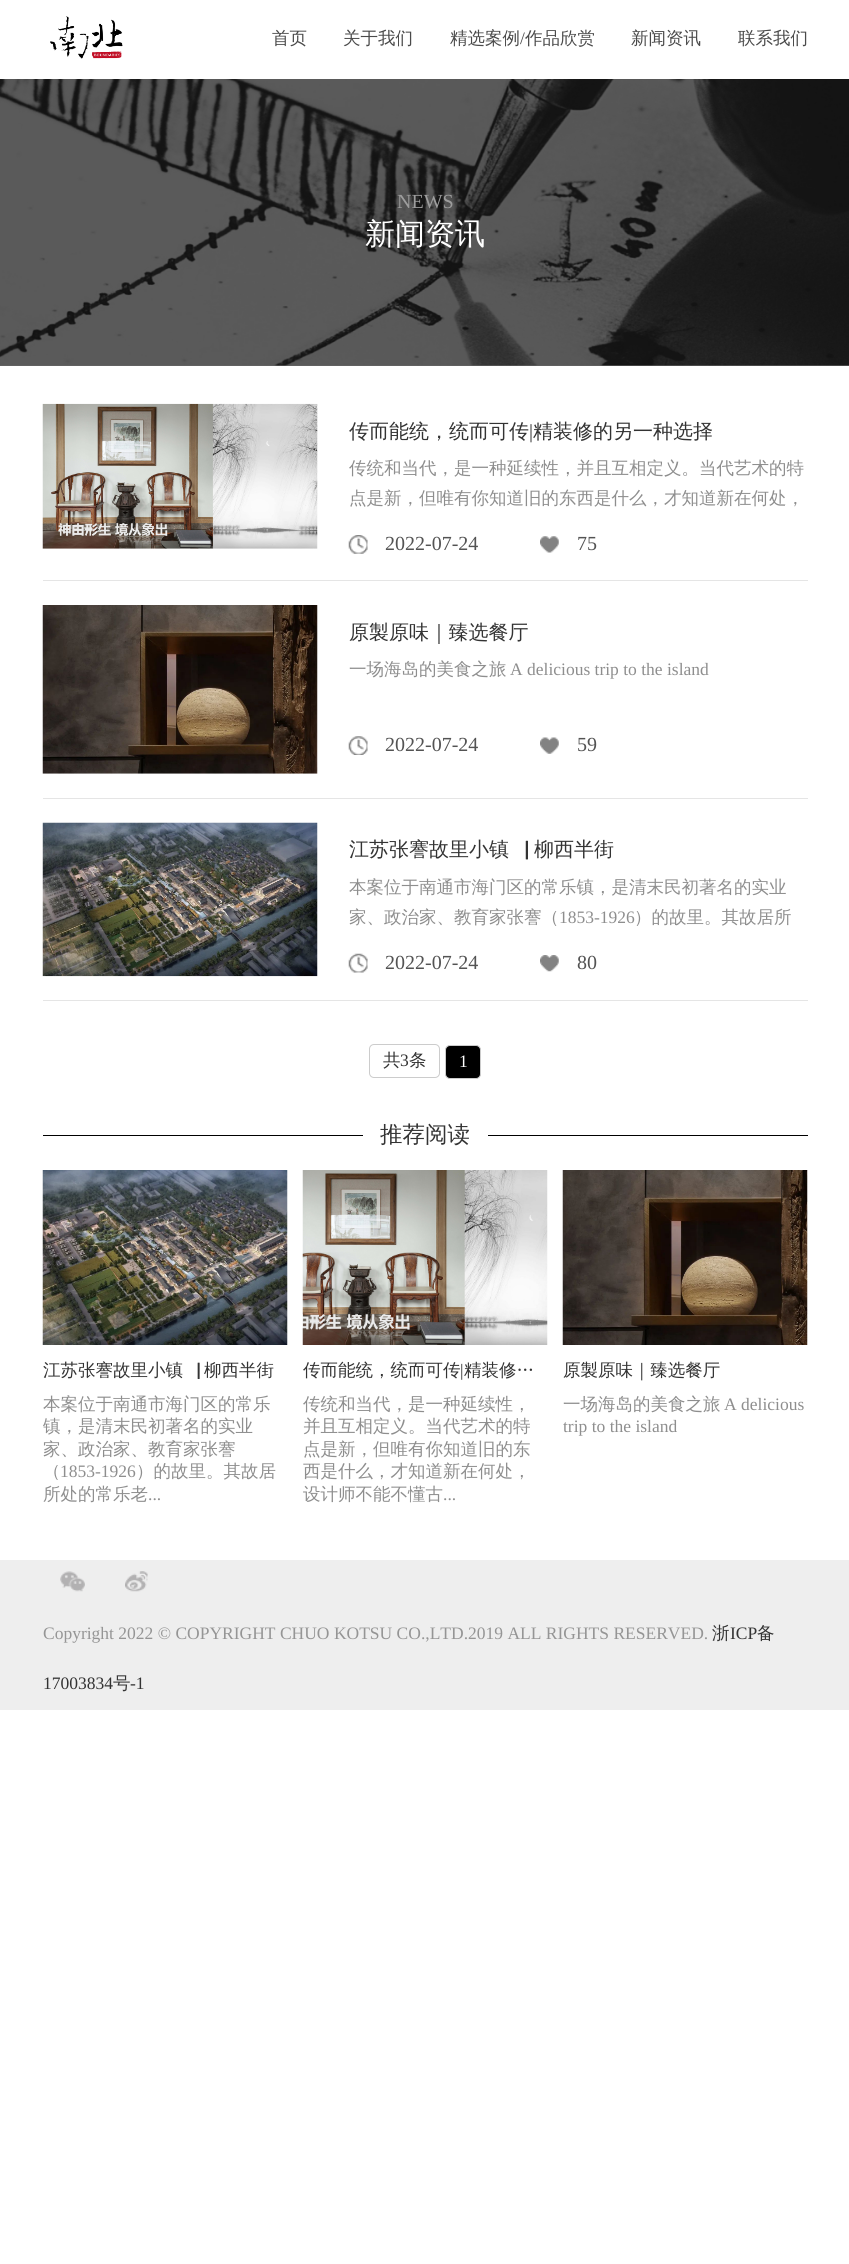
#include <cairo.h>
#include <math.h>
#include <stddef.h>

typedef struct { const char *family; double size; int italic, bold; unsigned color; } style_t;
static cairo_t *ctx;

static void ink(unsigned color) {
    cairo_set_source_rgb(ctx, (color >> 16) / 255.0, (color >> 8 & 255) / 255.0, (color & 255) / 255.0);
}

static void write(double x, double y, const char *s, const style_t *st) {
    cairo_select_font_face(ctx, st->family, st->italic ? CAIRO_FONT_SLANT_ITALIC : CAIRO_FONT_SLANT_NORMAL,
        st->bold ? CAIRO_FONT_WEIGHT_BOLD : CAIRO_FONT_WEIGHT_NORMAL);
    cairo_set_font_size(ctx, st->size);
    ink(st->color);
    cairo_move_to(ctx, x, y);
    cairo_show_text(ctx, s);
}

static void block(double x, double y, double w, double h, unsigned color) {
    ink(color);
    cairo_rectangle(ctx, x, y, w, h);
    cairo_fill(ctx);
}

static void round_path(double x, double y, double w, double h, double r) {
    cairo_new_sub_path(ctx);
    cairo_arc(ctx, x + w - r, y + h - r, r, 0, M_PI / 2);
    cairo_arc(ctx, x + r, y + h - r, r, M_PI / 2, M_PI);
    cairo_arc(ctx, x + r, y + r, r, M_PI, 1.5 * M_PI);
    cairo_arc(ctx, x + w - r, y + r, r, 1.5 * M_PI, 2 * M_PI);
    cairo_close_path(ctx);
}

static void paste(const char *path, double x, double y, double w, double h) {
    cairo_surface_t *image = cairo_image_surface_create_from_png(path);
    cairo_save(ctx);
    cairo_set_source_surface(ctx, image, x, y);
    cairo_rectangle(ctx, x, y, w, h);
    cairo_fill(ctx);
    cairo_restore(ctx);
    cairo_surface_destroy(image);
}

static const style_t s1 = {"WenQuanYi Zen Hei Medium", 17.5, 0, 0, 0x4a4a4a};
static const style_t s2 = {"Liberation Serif", 17.5, 0, 0, 0x4a4a4a};
static const style_t s3 = {"Liberation Serif", 20, 0, 0, 0x9d9d9d};
static const style_t s4 = {"WenQuanYi Zen Hei Medium", 30, 0, 0, 0xffffff};
static const style_t s5 = {"WenQuanYi Zen Hei Medium", 20, 0, 0, 0x333333};
static const style_t s6 = {"Liberation Serif", 20, 0, 0, 0x333333};
static const style_t s7 = {"WenQuanYi Zen Hei Medium", 17.5, 0, 0, 0x8e8e8e};
static const style_t s8 = {"Liberation Serif", 20, 0, 0, 0x535353};
static const style_t s9 = {"Liberation Serif", 17.5, 0, 0, 0x8e8e8e};
static const style_t s10 = {"WenQuanYi Zen Hei Medium", 17.5, 0, 0, 0x333333};
static const style_t s11 = {"Liberation Serif", 17.5, 0, 0, 0x333333};
static const style_t s12 = {"Liberation Serif", 17.5, 0, 0, 0xffffff};
static const style_t s13 = {"WenQuanYi Zen Hei Medium", 22.5, 0, 0, 0x333333};
static const style_t s14 = {"Liberation Serif", 17.5, 0, 0, 0x959595};

int main(void) {
    cairo_surface_t *surface = cairo_image_surface_create(CAIRO_FORMAT_RGB24, 849, 2264);
    ctx = cairo_create(surface);
    cairo_font_options_t *options = cairo_font_options_create();
    cairo_font_options_set_hint_metrics(options, CAIRO_HINT_METRICS_OFF);
    cairo_font_options_set_hint_style(options, CAIRO_HINT_STYLE_NONE);
    cairo_set_font_options(ctx, options);
    cairo_set_miter_limit(ctx, 4);
    ink(0xffffff);
    cairo_paint(ctx);
    block(0, 365, 849, 1, 0x666666);
    paste("pic1.png", 50, 16, 73, 43);
    write(272, 44, "首页", &s1);
    write(343, 44, "关于我们", &s1);
    write(450, 44, "精选案例", &s1);
    write(520, 44, "/", &s2);
    write(525, 44, "作品欣赏", &s1);
    write(631, 44, "新闻资讯", &s1);
    write(738, 44, "联系我们", &s1);
    paste("pic2.png", 0, 79, 849, 287);
    write(397, 208, "NEWS", &s3);
    write(365, 244, "新闻资讯", &s4);
    block(43, 580, 765, 1, 0xe5e5e5);
    paste("pic3.png", 42, 403, 276, 146);
    write(349, 438, "传而能统，统而可传", &s5);
    write(529, 438, "|", &s6);
    write(533, 438, "精装修的另一种选择", &s5);
    write(349, 474, "传统和当代，是一种延续性，并且互相定义。当代艺术的特", &s7);
    write(349, 504, "点是新，但唯有你知道旧的东西是什么，才知道新在何处，", &s7);
    paste("pic4.png", 348, 535, 20, 19);
    write(385, 550, "2022-07-24", &s8);
    paste("pic5.png", 540, 536, 19, 17);
    write(577, 550, "75", &s8);
    block(43, 798, 765, 1, 0xe5e5e5);
    paste("pic6.png", 42, 605, 276, 169);
    write(349, 639, "原製原味｜臻选餐厅", &s5);
    write(349, 675, "一场海岛的美食之旅", &s7);
    write(510, 675, "A delicious trip to the island", &s9);
    paste("pic7.png", 348, 736, 20, 19);
    write(385, 751, "2022-07-24", &s8);
    paste("pic8.png", 540, 737, 19, 17);
    write(577, 751, "59", &s8);
    block(43, 1000, 765, 1, 0xe5e5e5);
    paste("pic9.png", 42, 822, 276, 155);
    write(349, 856, "江苏张謇故里小镇▕", &s5);
    write(534, 856, "柳西半街", &s5);
    write(349, 893, "本案位于南通市海门区的常乐镇，是清末民初著名的实业", &s7);
    write(349, 923, "家、政治家、教育家张謇（", &s7);
    write(559, 923, "1853-1926", &s9);
    write(634, 923, "）的故里。其故居所", &s7);
    paste("pic10.png", 348, 953, 20, 20);
    write(385, 969, "2022-07-24", &s8);
    paste("pic11.png", 540, 955, 19, 17);
    write(577, 969, "80", &s8);
    round_path(369.5, 1044.5, 70, 33, 4.5);
    ink(0xcccccc);
    cairo_set_line_width(ctx, 1);
    cairo_stroke(ctx);
    write(383, 1066, "共", &s10);
    write(400, 1066, "3", &s11);
    write(409, 1066, "条", &s10);
    ink(0x000000);
    round_path(445.5, 1045.5, 35, 33, 4.5);
    cairo_fill_preserve(ctx);
    ink(0xcccccc);
    cairo_stroke(ctx);
    write(459, 1067, "1", &s12);
    block(43, 1135, 765, 1, 0x000000);
    block(363, 1135, 125, 1, 0xffffff);
    write(380, 1142, "推荐阅读", &s13);
    paste("pic12.png", 42, 1170, 246, 175);
    write(43, 1376, "江苏张謇故里小镇▕", &s10);
    write(204, 1376, "柳西半街", &s10);
    write(43, 1410, "本案位于南通市海门区的常乐", &s7);
    write(43, 1432, "镇，是清末民初著名的实业", &s7);
    write(43, 1455, "家、政治家、教育家张謇", &s7);
    write(43, 1477, "（", &s7);
    write(60, 1477, "1853-1926", &s9);
    write(136, 1477, "）的故里。其故居", &s7);
    write(43, 1500, "所处的常乐老", &s7);
    write(148, 1500, "...", &s9);
    paste("pic13.png", 302, 1170, 246, 175);
    write(303, 1376, "传而能统，统而可传", &s10);
    write(460, 1376, "|", &s11);
    write(464, 1376, "精装修…", &s10);
    write(303, 1410, "传统和当代，是一种延续性，", &s7);
    write(303, 1432, "并且互相定义。当代艺术的特", &s7);
    write(303, 1455, "点是新，但唯有你知道旧的东", &s7);
    write(303, 1477, "西是什么，才知道新在何处，", &s7);
    write(303, 1500, "设计师不能不懂古", &s7);
    write(443, 1500, "...", &s9);
    paste("pic14.png", 562, 1170, 246, 175);
    write(563, 1376, "原製原味｜臻选餐厅", &s10);
    write(563, 1410, "一场海岛的美食之旅", &s7);
    write(724, 1410, "A delicious", &s9);
    write(563, 1432, "trip to the island", &s9);
    block(0, 1560, 849, 150, 0xeeeeee);
    paste("pic15.png", 60, 1571, 25, 21);
    paste("pic16.png", 125, 1571, 23, 21);
    write(43, 1639, "Copyright 2022 © COPYRIGHT CHUO KOTSU CO.,LTD.2019 ALL RIGHTS RESERVED.", &s14);
    write(712, 1639, "浙", &s10);
    write(730, 1639, "ICP", &s11);
    write(757, 1639, "备", &s10);
    write(43, 1689, "17003834", &s11);
    write(113, 1689, "号", &s10);
    write(130, 1689, "-1", &s11);
    cairo_surface_write_to_png(surface, "screenshot.png");
    cairo_font_options_destroy(options);
    cairo_destroy(ctx);
    cairo_surface_destroy(surface);
    return 0;
}
